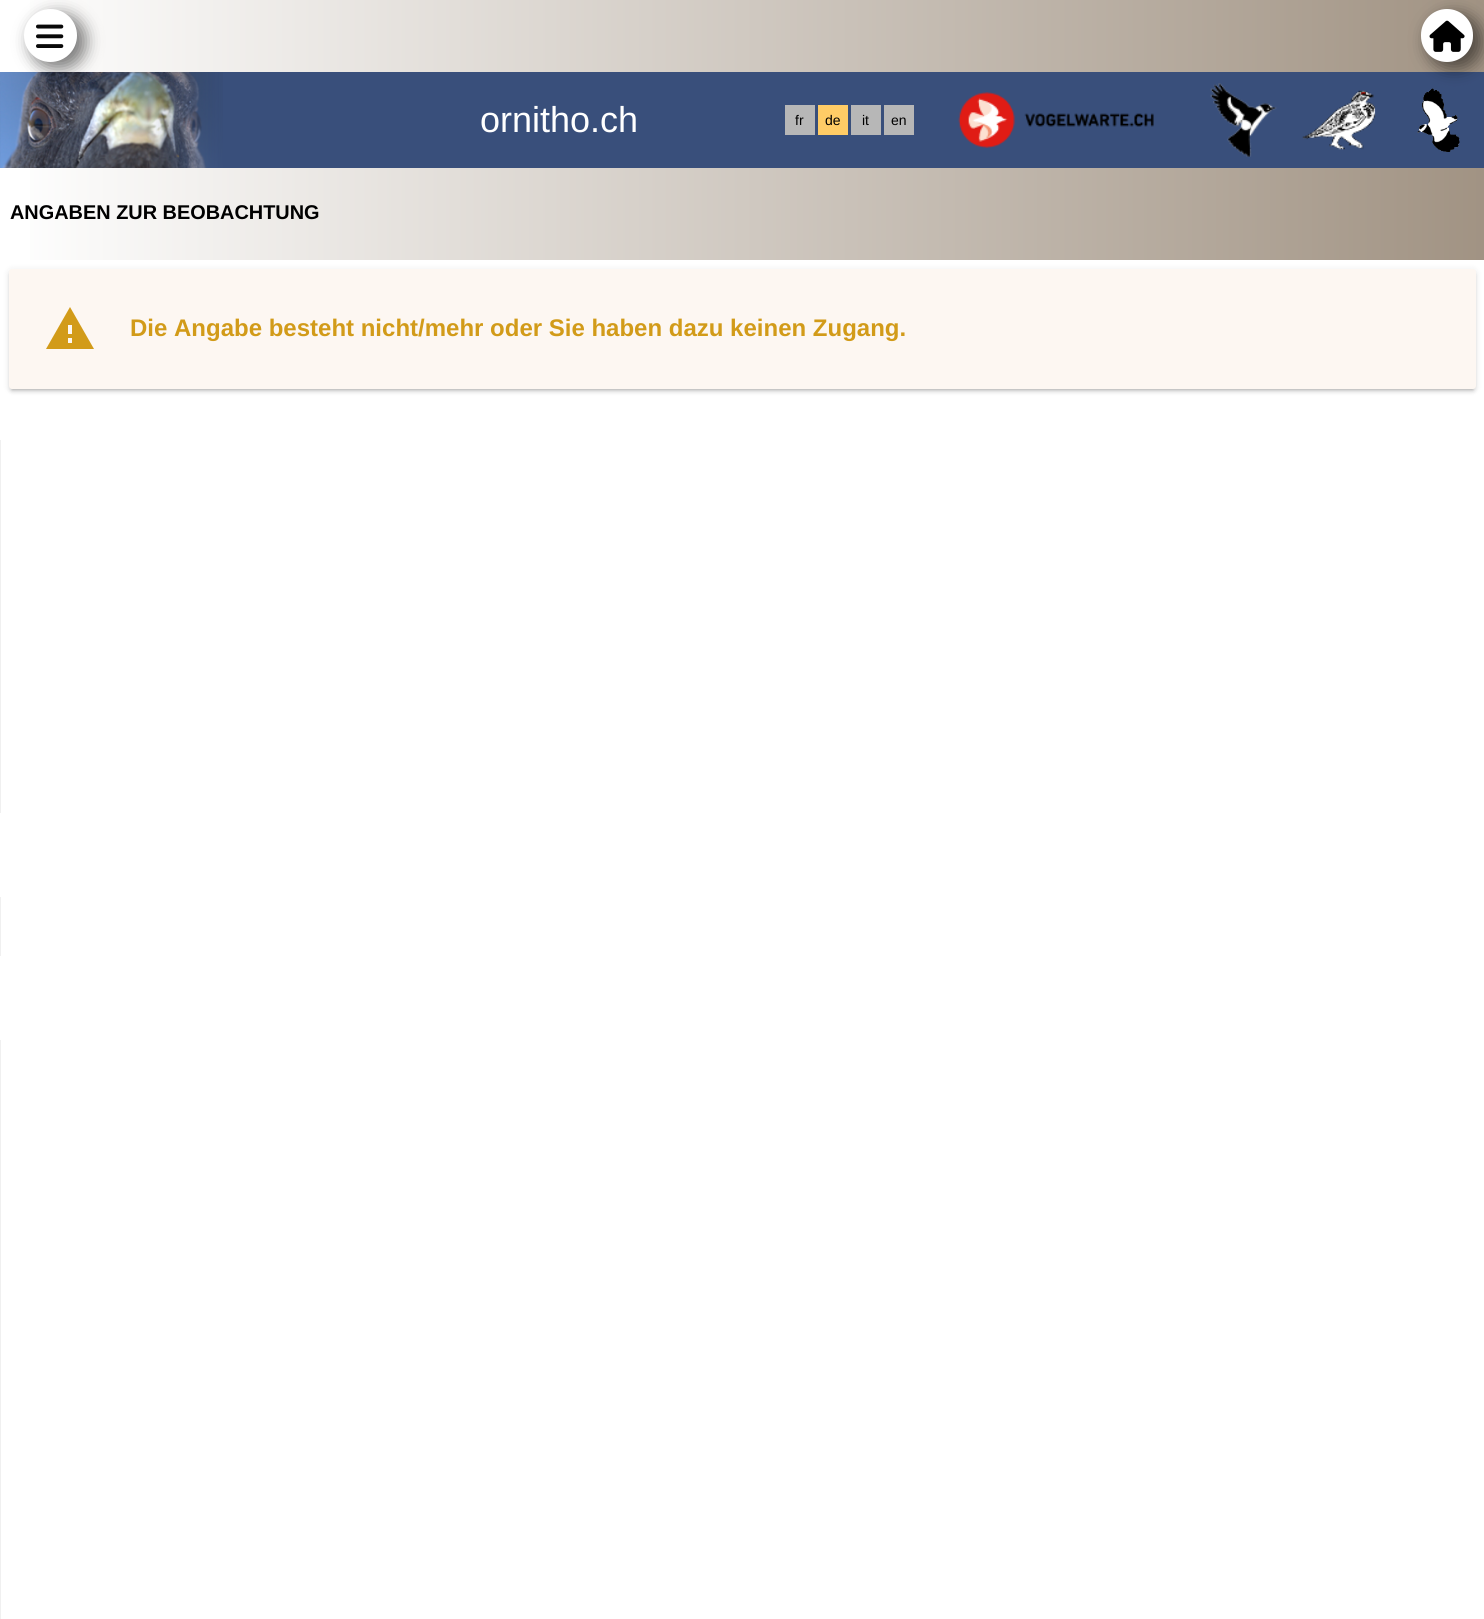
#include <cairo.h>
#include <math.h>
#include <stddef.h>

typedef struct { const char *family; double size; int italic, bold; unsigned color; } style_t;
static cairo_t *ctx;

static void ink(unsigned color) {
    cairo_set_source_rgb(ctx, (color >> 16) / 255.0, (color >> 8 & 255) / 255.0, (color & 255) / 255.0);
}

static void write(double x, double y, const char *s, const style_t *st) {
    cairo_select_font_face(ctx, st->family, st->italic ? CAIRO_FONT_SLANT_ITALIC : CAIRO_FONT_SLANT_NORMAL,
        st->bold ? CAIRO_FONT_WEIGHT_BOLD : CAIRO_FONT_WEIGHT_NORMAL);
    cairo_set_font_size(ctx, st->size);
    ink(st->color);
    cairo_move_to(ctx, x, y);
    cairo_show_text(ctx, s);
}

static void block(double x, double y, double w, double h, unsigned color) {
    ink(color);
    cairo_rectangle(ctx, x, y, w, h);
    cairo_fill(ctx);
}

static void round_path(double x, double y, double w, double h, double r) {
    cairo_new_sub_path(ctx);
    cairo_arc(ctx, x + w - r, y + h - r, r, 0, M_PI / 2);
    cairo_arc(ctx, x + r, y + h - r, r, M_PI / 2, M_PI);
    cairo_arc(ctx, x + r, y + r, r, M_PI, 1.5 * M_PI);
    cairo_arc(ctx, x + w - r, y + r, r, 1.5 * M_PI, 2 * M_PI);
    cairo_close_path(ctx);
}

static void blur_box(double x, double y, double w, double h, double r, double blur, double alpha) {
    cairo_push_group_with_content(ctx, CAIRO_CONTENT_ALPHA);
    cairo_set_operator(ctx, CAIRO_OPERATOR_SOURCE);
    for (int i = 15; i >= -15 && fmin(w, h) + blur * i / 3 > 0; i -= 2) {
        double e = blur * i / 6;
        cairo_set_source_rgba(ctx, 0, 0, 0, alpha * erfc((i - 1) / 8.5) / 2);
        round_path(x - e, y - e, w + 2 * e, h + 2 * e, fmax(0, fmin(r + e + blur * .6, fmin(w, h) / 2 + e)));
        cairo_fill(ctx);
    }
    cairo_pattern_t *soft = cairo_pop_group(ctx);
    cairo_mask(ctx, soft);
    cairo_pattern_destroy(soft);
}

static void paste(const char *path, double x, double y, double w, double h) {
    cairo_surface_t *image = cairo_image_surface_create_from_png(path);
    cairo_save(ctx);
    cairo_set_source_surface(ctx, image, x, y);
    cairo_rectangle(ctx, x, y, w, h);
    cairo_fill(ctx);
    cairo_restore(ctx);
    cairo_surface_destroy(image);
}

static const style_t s1 = {"Liberation Sans", 36, 0, 0, 0xffffff};
static const style_t s2 = {"Liberation Sans", 14, 0, 0, 0x000000};
static const style_t s3 = {"Liberation Sans", 19.9, 0, 1, 0x000000};
static const style_t s4 = {"Liberation Sans", 24, 0, 1, 0xd29b19};

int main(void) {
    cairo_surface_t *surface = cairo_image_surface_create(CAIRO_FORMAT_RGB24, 1484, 1619);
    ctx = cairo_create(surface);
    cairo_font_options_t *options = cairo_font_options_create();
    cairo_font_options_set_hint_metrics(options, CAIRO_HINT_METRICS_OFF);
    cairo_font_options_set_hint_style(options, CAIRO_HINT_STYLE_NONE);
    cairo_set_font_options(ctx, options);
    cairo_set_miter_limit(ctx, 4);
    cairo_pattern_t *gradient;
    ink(0xffffff);
    cairo_paint(ctx);
    gradient = cairo_pattern_create_linear(0, 36, 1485, 36);
    cairo_pattern_add_color_stop_rgba(gradient, 0, 1, 1, 1, 1);
    cairo_pattern_add_color_stop_rgba(gradient, 1, 0.631, 0.576, 0.514, 1);
    cairo_set_source(ctx, gradient);
    cairo_pattern_destroy(gradient);
    cairo_rectangle(ctx, 30, 0, 1454, 72);
    cairo_fill(ctx);
    block(147, 72, 1337, 96, 0x394f7b);
    paste("pic3.png", 0, 72, 223, 96);
    ink(0x000000);
    blur_box(30, 14, 56, 55, 27.5, 8, 0.5);
    ink(0xffffff);
    cairo_arc(ctx, 50.5, 35.5, 26.5, 0, 2 * M_PI);
    cairo_fill(ctx);
    paste("pic1.png", 36, 24, 28, 24);
    paste("pic7.png", 1417, 88, 43, 64);
    ink(0x000000);
    blur_box(1427, 14, 55, 55, 27.5, 8, 0.5);
    ink(0xffffff);
    round_path(1421, 9, 52, 53, 26);
    cairo_fill(ctx);
    paste("pic2.png", 1429, 20, 36, 32);
    write(480, 132, "ornitho.ch", &s1);
    block(785, 105, 30, 30, 0xb7b7b7);
    write(795, 125, "fr", &s2);
    block(818, 105, 30, 30, 0xffcc66);
    write(825, 125, "de", &s2);
    block(851, 105, 30, 30, 0xb7b7b7);
    write(862, 125, "it", &s2);
    block(884, 105, 30, 30, 0xb7b7b7);
    write(891, 125, "en", &s2);
    paste("pic4.png", 958, 92, 196, 56);
    paste("pic5.png", 1210, 83, 67, 74);
    paste("pic6.png", 1302, 90, 74, 60);
    ink(0x000000);
    blur_box(9, 270, 1467, 120, 3, 4, 0.08);
    gradient = cairo_pattern_create_linear(0, 214, 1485, 214);
    cairo_pattern_add_color_stop_rgba(gradient, 0, 1, 1, 1, 1);
    cairo_pattern_add_color_stop_rgba(gradient, 1, 0.631, 0.576, 0.514, 1);
    cairo_set_source(ctx, gradient);
    cairo_pattern_destroy(gradient);
    cairo_rectangle(ctx, 30, 168, 1454, 92);
    cairo_fill(ctx);
    write(10, 219, "ANGABEN ZUR BEOBACHTUNG", &s3);
    ink(0x000000);
    blur_box(9, 272, 1467, 120, 3, 1.5, 0.1);
    blur_box(12, 276, 1461, 114, 0, 1, 0.14);
    ink(0xfdf7f2);
    round_path(9, 269, 1467, 120, 3);
    cairo_fill(ctx);
    ink(0xd29b19);
    cairo_new_path(ctx);
    cairo_move_to(ctx, 46, 349);
    cairo_line_to(ctx, 94, 349);
    cairo_line_to(ctx, 70, 307);
    cairo_close_path(ctx);
    cairo_move_to(ctx, 72, 343);
    cairo_line_to(ctx, 68, 343);
    cairo_line_to(ctx, 68, 338);
    cairo_line_to(ctx, 72, 338);
    cairo_close_path(ctx);
    cairo_move_to(ctx, 72, 334);
    cairo_line_to(ctx, 68, 334);
    cairo_line_to(ctx, 68, 325);
    cairo_line_to(ctx, 72, 325);
    cairo_close_path(ctx);
    cairo_fill(ctx);
    write(130, 336, "Die Angabe besteht nicht/mehr oder Sie haben dazu keinen Zugang.", &s4);
    block(0, 440, 1, 373, 0xf0f0f0);
    block(0, 897, 1, 59, 0xf0f0f0);
    block(0, 1040, 1, 579, 0xf0f0f0);
    cairo_surface_write_to_png(surface, "screenshot.png");
    cairo_font_options_destroy(options);
    cairo_destroy(ctx);
    cairo_surface_destroy(surface);
    return 0;
}
